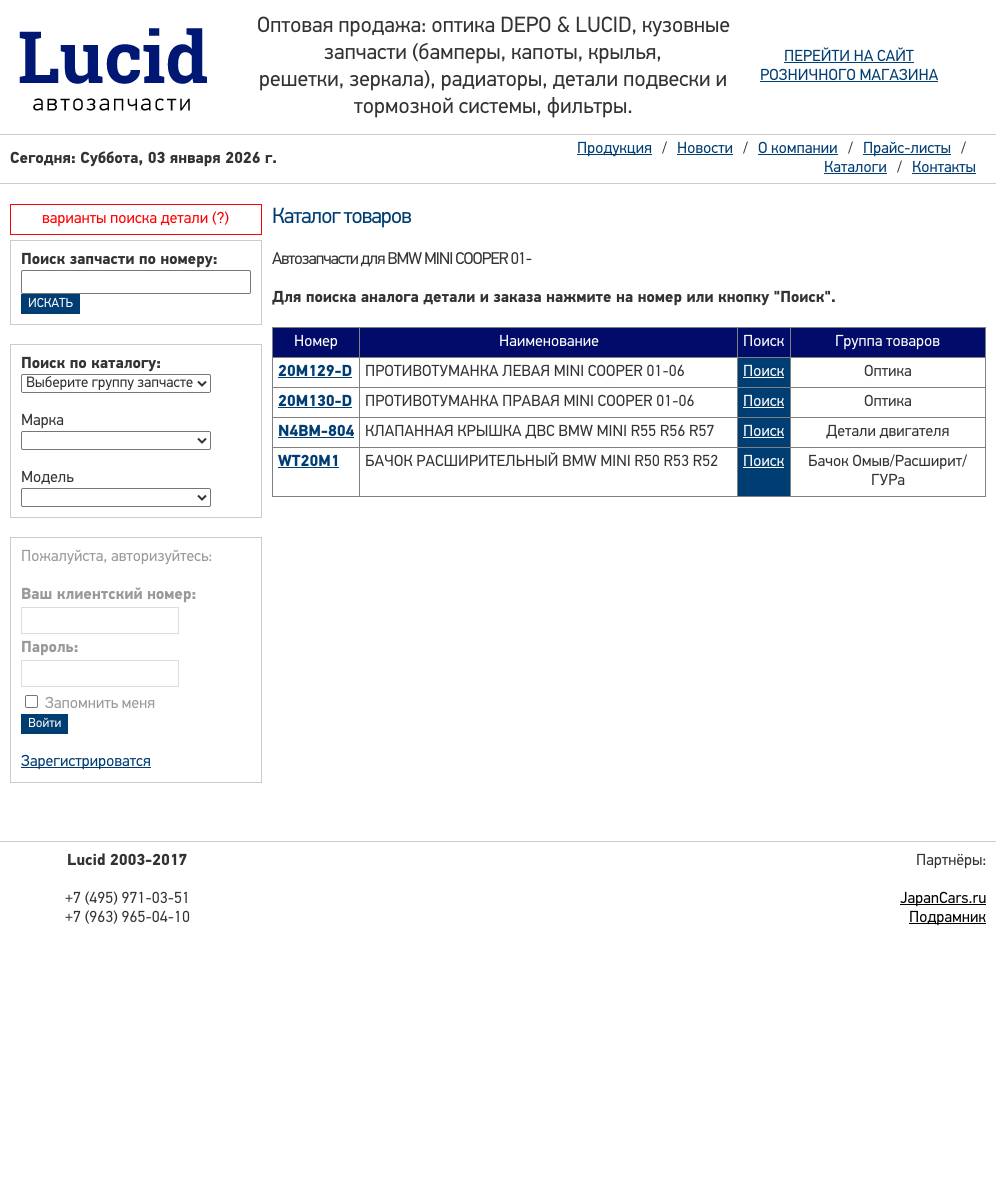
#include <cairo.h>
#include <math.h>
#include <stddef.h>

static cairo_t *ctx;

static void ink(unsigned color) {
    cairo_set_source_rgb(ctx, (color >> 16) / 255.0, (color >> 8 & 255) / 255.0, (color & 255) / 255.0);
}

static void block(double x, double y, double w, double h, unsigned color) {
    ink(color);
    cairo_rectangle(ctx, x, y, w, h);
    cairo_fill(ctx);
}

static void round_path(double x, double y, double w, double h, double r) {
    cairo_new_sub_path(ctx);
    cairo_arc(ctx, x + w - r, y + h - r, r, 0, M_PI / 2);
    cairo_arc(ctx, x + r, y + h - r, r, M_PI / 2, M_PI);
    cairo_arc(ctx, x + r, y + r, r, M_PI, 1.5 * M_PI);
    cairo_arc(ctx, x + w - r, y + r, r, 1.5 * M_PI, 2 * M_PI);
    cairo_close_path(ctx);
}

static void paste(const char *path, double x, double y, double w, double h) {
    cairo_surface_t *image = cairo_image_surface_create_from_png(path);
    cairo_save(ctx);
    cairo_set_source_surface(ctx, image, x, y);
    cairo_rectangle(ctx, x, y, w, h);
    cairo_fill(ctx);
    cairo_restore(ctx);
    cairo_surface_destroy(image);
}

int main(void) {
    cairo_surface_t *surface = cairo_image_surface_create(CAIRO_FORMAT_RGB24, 996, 1183);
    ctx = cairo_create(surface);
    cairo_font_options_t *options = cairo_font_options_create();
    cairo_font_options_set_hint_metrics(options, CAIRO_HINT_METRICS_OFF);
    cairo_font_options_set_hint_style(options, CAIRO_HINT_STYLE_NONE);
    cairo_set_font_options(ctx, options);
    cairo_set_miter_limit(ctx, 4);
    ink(0xffffff);
    cairo_paint(ctx);
    paste("pic1.png", 19, 28, 188, 83);
    paste("pic2.png", 258, 16, 472, 21);
    paste("pic3.png", 324, 42, 337, 22);
    paste("pic4.png", 260, 70, 466, 21);
    paste("pic5.png", 354, 97, 278, 21);
    paste("pic6.png", 785, 47, 129, 15);
    block(784, 62, 130, 1, 0x003d73);
    paste("pic7.png", 761, 68, 178, 13);
    block(760, 81, 178, 1, 0x003d73);
    block(0, 134, 996, 1, 0xcccccc);
    block(0, 183, 996, 1, 0xcccccc);
    paste("pic8.png", 10, 151, 266, 16);
    block(577, 154, 75, 1, 0x003d73);
    paste("pic9.png", 578, 141, 74, 16);
    ink(0x333333);
    cairo_new_path(ctx);
    cairo_move_to(ctx, 663, 153.5);
    cairo_line_to(ctx, 662, 153.5);
    cairo_line_to(ctx, 666, 141.5);
    cairo_line_to(ctx, 667, 141.5);
    cairo_close_path(ctx);
    cairo_fill(ctx);
    paste("pic10.png", 678, 141, 55, 13);
    cairo_new_path(ctx);
    cairo_move_to(ctx, 744, 153.5);
    cairo_line_to(ctx, 743, 153.5);
    cairo_line_to(ctx, 747, 141.5);
    cairo_line_to(ctx, 748, 141.5);
    cairo_close_path(ctx);
    cairo_fill(ctx);
    paste("pic11.png", 758, 141, 79, 13);
    cairo_new_path(ctx);
    cairo_move_to(ctx, 849, 153.5);
    cairo_line_to(ctx, 848, 153.5);
    cairo_line_to(ctx, 852, 141.5);
    cairo_line_to(ctx, 853, 141.5);
    cairo_close_path(ctx);
    cairo_fill(ctx);
    block(863, 154, 88, 1, 0x003d73);
    paste("pic12.png", 864, 141, 87, 16);
    ink(0x333333);
    cairo_new_path(ctx);
    cairo_move_to(ctx, 962, 153.5);
    cairo_line_to(ctx, 961, 153.5);
    cairo_line_to(ctx, 965, 141.5);
    cairo_line_to(ctx, 966, 141.5);
    cairo_close_path(ctx);
    cairo_fill(ctx);
    block(677, 154, 56, 1, 0x003d73);
    block(758, 154, 80, 1, 0x003d73);
    paste("pic13.png", 825, 160, 61, 13);
    ink(0x333333);
    cairo_new_path(ctx);
    cairo_move_to(ctx, 898, 172.5);
    cairo_line_to(ctx, 897, 172.5);
    cairo_line_to(ctx, 901, 160.5);
    cairo_line_to(ctx, 902, 160.5);
    cairo_close_path(ctx);
    cairo_fill(ctx);
    paste("pic14.png", 913, 160, 62, 13);
    block(824, 173, 63, 1, 0x003d73);
    block(912, 173, 64, 1, 0x003d73);
    cairo_rectangle(ctx, 10.5, 204.5, 251, 30);
    ink(0xff0000);
    cairo_set_line_width(ctx, 1);
    cairo_stroke(ctx);
    paste("pic15.png", 42, 211, 187, 16);
    cairo_rectangle(ctx, 10.5, 240.5, 251, 84);
    ink(0xcccccc);
    cairo_stroke(ctx);
    paste("pic16.png", 22, 252, 195, 16);
    round_path(21.5, 270.5, 229, 23, 1.5);
    ink(0x767676);
    cairo_stroke(ctx);
    block(21, 294, 59, 20, 0x003d73);
    paste("pic17.png", 28, 297, 45, 11);
    cairo_rectangle(ctx, 10.5, 344.5, 251, 173);
    ink(0xcccccc);
    cairo_stroke(ctx);
    paste("pic18.png", 22, 356, 138, 16);
    round_path(21.5, 374.5, 189, 18, 1.5);
    ink(0x767676);
    cairo_stroke(ctx);
    cairo_new_path(ctx);
    cairo_move_to(ctx, 198, 381.5);
    cairo_line_to(ctx, 202, 385.5);
    cairo_line_to(ctx, 206, 381.5);
    ink(0x333333);
    cairo_set_line_width(ctx, 2);
    cairo_stroke(ctx);
    paste("pic19.png", 27, 376, 166, 14);
    paste("pic20.png", 22, 413, 42, 16);
    round_path(21.5, 431.5, 189, 18, 1.5);
    ink(0x767676);
    cairo_set_line_width(ctx, 1);
    cairo_stroke(ctx);
    cairo_new_path(ctx);
    cairo_move_to(ctx, 198, 438.5);
    cairo_line_to(ctx, 202, 442.5);
    cairo_line_to(ctx, 206, 438.5);
    ink(0x333333);
    cairo_set_line_width(ctx, 2);
    cairo_stroke(ctx);
    paste("pic21.png", 22, 470, 52, 15);
    round_path(21.5, 488.5, 189, 18, 1.5);
    ink(0x767676);
    cairo_set_line_width(ctx, 1);
    cairo_stroke(ctx);
    cairo_new_path(ctx);
    cairo_move_to(ctx, 198, 495.5);
    cairo_line_to(ctx, 202, 499.5);
    cairo_line_to(ctx, 206, 495.5);
    ink(0x333333);
    cairo_set_line_width(ctx, 2);
    cairo_stroke(ctx);
    cairo_rectangle(ctx, 10.5, 537.5, 251, 245);
    ink(0xcccccc);
    cairo_set_line_width(ctx, 1);
    cairo_stroke(ctx);
    paste("pic22.png", 22, 549, 190, 16);
    paste("pic23.png", 22, 587, 174, 16);
    cairo_rectangle(ctx, 21.5, 607.5, 157, 26);
    ink(0xdddddd);
    cairo_stroke(ctx);
    paste("pic24.png", 22, 640, 56, 16);
    cairo_rectangle(ctx, 21.5, 660.5, 157, 26);
    cairo_stroke(ctx);
    round_path(25.5, 695.5, 12, 12, 1.5);
    ink(0x767676);
    cairo_stroke(ctx);
    paste("pic25.png", 45, 696, 110, 13);
    block(21, 714, 47, 20, 0x003d73);
    paste("pic26.png", 29, 717, 32, 11);
    block(21, 767, 130, 1, 0x003d73);
    paste("pic27.png", 21, 754, 129, 16);
    paste("pic28.png", 273, 207, 139, 21);
    paste("pic29.png", 272, 252, 260, 15);
    paste("pic30.png", 272, 290, 563, 16);
    block(272, 327, 714, 1, 0x808080);
    block(985, 327, 1, 170, 0x808080);
    block(272, 496, 714, 1, 0x808080);
    block(272, 327, 1, 170, 0x808080);
    block(273, 328, 712, 29, 0x010b6a);
    paste("pic31.png", 295, 334, 43, 16);
    block(790, 357, 196, 1, 0x808080);
    block(790, 387, 196, 1, 0x808080);
    block(790, 417, 196, 1, 0x808080);
    block(790, 447, 196, 1, 0x808080);
    block(790, 447, 1, 50, 0x808080);
    block(737, 447, 54, 1, 0x808080);
    block(790, 417, 1, 31, 0x808080);
    block(737, 417, 54, 1, 0x808080);
    block(790, 387, 1, 31, 0x808080);
    block(737, 387, 54, 1, 0x808080);
    block(790, 357, 1, 31, 0x808080);
    block(737, 357, 54, 1, 0x808080);
    block(737, 447, 1, 50, 0x808080);
    block(359, 447, 379, 1, 0x808080);
    block(737, 417, 1, 31, 0x808080);
    block(359, 417, 379, 1, 0x808080);
    block(737, 387, 1, 31, 0x808080);
    block(359, 387, 379, 1, 0x808080);
    block(737, 357, 1, 31, 0x808080);
    block(359, 357, 379, 1, 0x808080);
    block(359, 447, 1, 50, 0x808080);
    block(272, 447, 88, 1, 0x808080);
    block(359, 417, 1, 31, 0x808080);
    block(272, 417, 88, 1, 0x808080);
    block(359, 387, 1, 31, 0x808080);
    block(272, 387, 88, 1, 0x808080);
    block(359, 357, 1, 31, 0x808080);
    block(272, 357, 88, 1, 0x808080);
    block(359, 327, 1, 31, 0x808080);
    paste("pic32.png", 500, 334, 99, 13);
    block(737, 327, 1, 31, 0x808080);
    paste("pic33.png", 744, 334, 40, 13);
    block(790, 327, 1, 31, 0x808080);
    paste("pic34.png", 836, 334, 104, 16);
    paste("pic35.png", 278, 364, 74, 13);
    block(278, 377, 74, 1, 0x003d73);
    paste("pic36.png", 366, 364, 318, 13);
    block(738, 358, 52, 29, 0x003d73);
    paste("pic37.png", 744, 364, 40, 13);
    block(743, 377, 41, 1, 0xffffff);
    paste("pic38.png", 864, 364, 47, 13);
    paste("pic39.png", 278, 394, 74, 13);
    block(278, 407, 74, 1, 0x003d73);
    paste("pic40.png", 366, 394, 328, 13);
    block(738, 388, 52, 29, 0x003d73);
    paste("pic37.png", 744, 394, 40, 13);
    block(743, 407, 41, 1, 0xffffff);
    paste("pic38.png", 864, 394, 47, 13);
    paste("pic41.png", 279, 424, 75, 13);
    block(278, 437, 76, 1, 0x003d73);
    paste("pic42.png", 366, 424, 348, 15);
    block(738, 418, 52, 29, 0x003d73);
    paste("pic37.png", 744, 424, 40, 13);
    block(743, 437, 41, 1, 0xffffff);
    paste("pic43.png", 826, 424, 123, 15);
    paste("pic44.png", 278, 454, 60, 13);
    block(278, 467, 61, 1, 0x003d73);
    paste("pic45.png", 366, 452, 352, 15);
    block(738, 448, 52, 48, 0x003d73);
    paste("pic37.png", 744, 454, 40, 13);
    block(743, 467, 41, 1, 0xffffff);
    paste("pic46.png", 809, 454, 159, 16);
    paste("pic47.png", 872, 473, 33, 13);
    block(0, 841, 996, 1, 0xcccccc);
    paste("pic48.png", 68, 853, 119, 13);
    paste("pic49.png", 65, 891, 122, 14);
    paste("pic50.png", 65, 910, 125, 14);
    paste("pic51.png", 917, 853, 69, 16);
    block(900, 904, 86, 1, 0x000000);
    paste("pic52.png", 900, 891, 86, 16);
    block(909, 923, 77, 1, 0x000000);
    paste("pic53.png", 910, 910, 76, 16);
    cairo_surface_write_to_png(surface, "screenshot.png");
    cairo_font_options_destroy(options);
    cairo_destroy(ctx);
    cairo_surface_destroy(surface);
    return 0;
}
